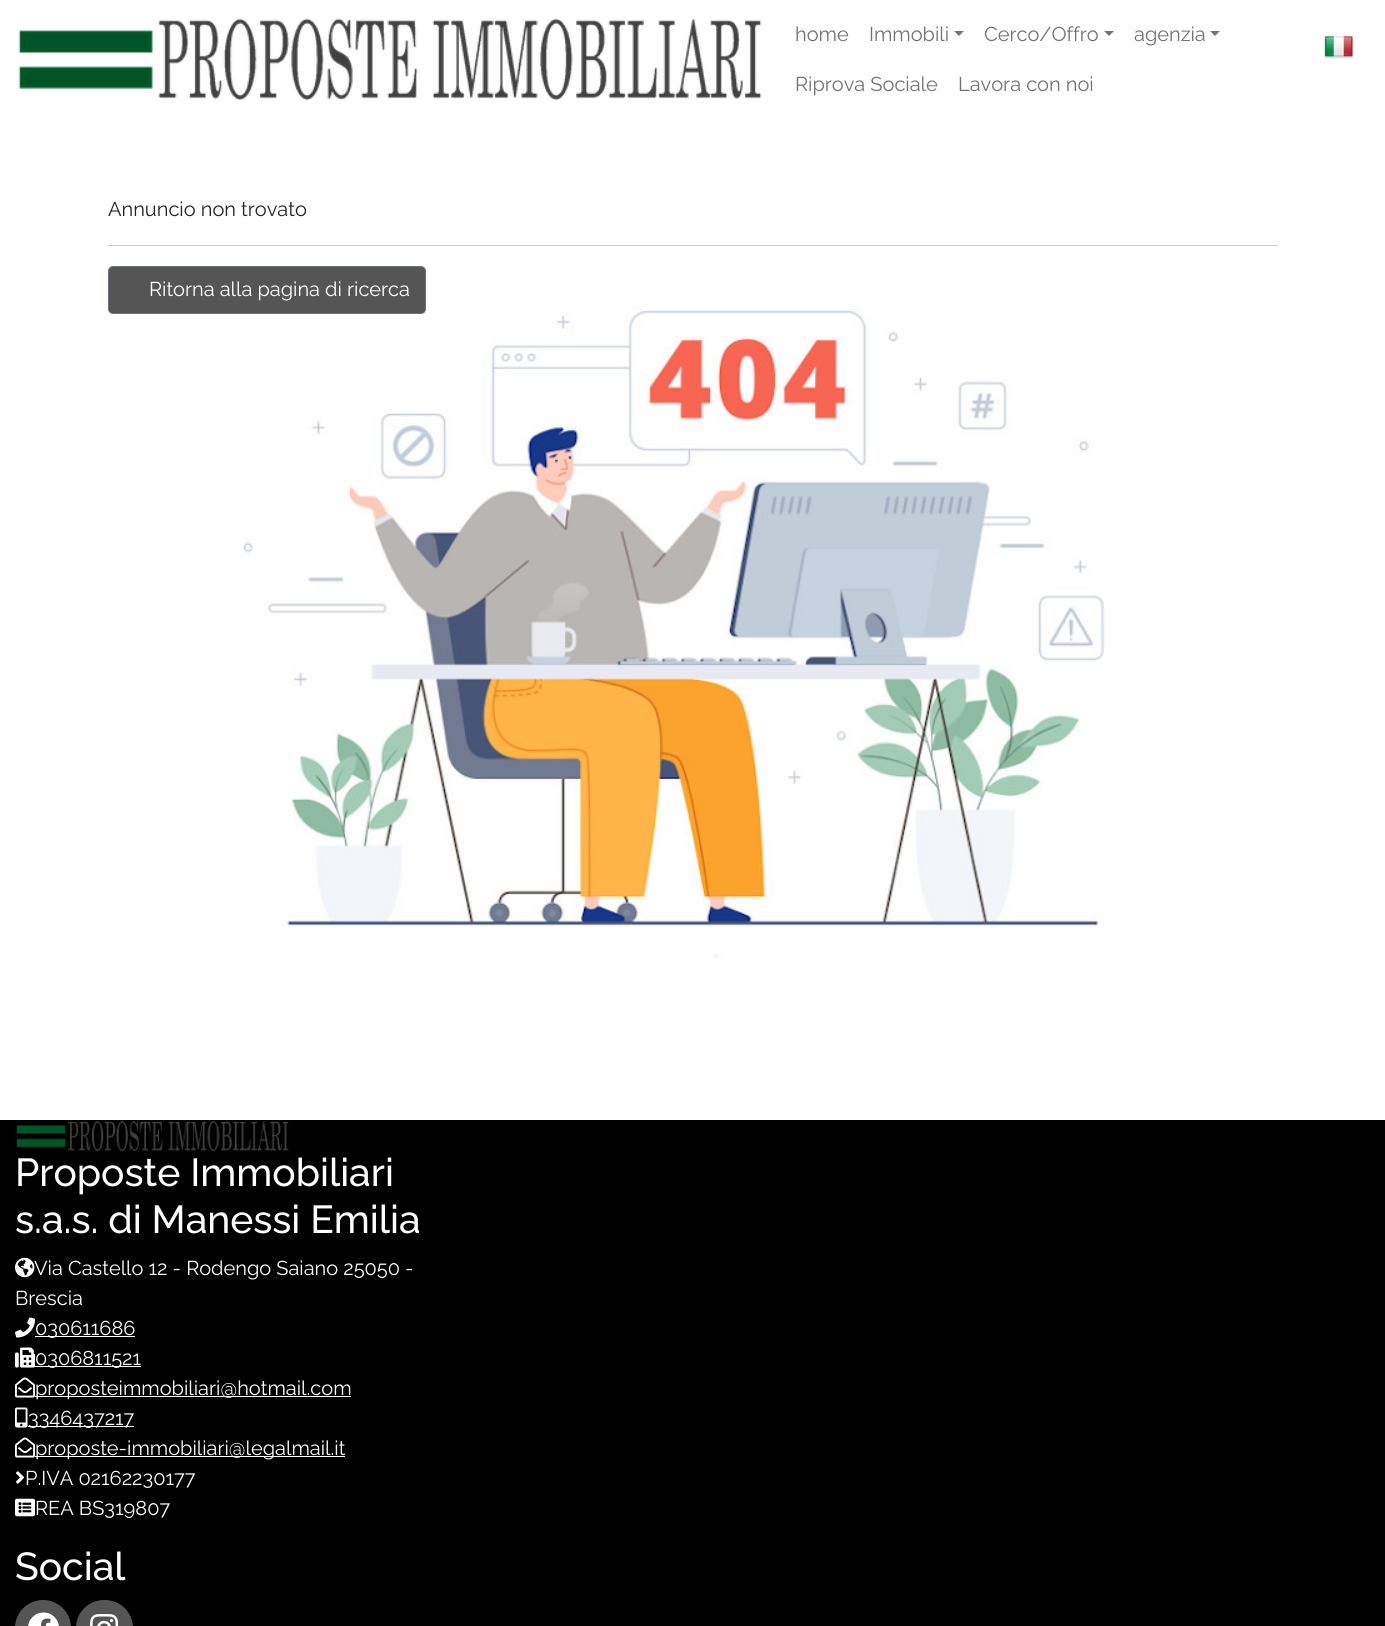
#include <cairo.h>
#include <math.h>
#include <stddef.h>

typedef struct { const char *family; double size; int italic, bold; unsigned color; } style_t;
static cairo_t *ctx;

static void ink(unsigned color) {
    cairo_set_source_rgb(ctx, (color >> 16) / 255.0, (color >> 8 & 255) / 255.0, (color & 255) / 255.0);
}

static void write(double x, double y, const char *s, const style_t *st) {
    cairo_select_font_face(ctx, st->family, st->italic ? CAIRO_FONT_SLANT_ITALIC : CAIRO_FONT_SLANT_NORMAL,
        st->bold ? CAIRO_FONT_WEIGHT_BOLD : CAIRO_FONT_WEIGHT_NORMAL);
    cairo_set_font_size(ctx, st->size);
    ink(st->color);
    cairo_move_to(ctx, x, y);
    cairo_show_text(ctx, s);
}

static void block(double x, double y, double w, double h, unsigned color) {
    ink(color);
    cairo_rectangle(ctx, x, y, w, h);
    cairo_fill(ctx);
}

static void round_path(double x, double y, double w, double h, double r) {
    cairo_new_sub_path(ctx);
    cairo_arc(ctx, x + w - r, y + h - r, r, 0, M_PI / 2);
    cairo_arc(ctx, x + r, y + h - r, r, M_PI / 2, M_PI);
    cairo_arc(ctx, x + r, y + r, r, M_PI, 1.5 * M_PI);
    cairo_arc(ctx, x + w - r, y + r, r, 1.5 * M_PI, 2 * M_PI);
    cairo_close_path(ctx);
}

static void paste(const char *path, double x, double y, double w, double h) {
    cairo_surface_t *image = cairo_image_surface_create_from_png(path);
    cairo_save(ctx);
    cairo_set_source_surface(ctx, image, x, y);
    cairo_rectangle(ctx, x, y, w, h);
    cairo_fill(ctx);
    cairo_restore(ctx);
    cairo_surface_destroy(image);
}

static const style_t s1 = {"Raleway", 20, 0, 0, 0x737373};
static const style_t s2 = {"Raleway", 20, 0, 0, 0x212529};
static const style_t s3 = {"Raleway", 20, 0, 0, 0xffffff};
static const style_t s4 = {"Raleway Medium", 39, 0, 0, 0xffffff};

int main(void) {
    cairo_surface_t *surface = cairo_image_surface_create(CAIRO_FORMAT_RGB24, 1385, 1626);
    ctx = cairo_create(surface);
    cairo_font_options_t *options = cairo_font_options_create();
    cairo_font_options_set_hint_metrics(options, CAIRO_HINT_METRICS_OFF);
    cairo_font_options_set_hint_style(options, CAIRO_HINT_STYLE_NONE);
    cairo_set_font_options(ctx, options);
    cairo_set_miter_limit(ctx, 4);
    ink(0xffffff);
    cairo_paint(ctx);
    paste("pic1.png", 18, 18, 744, 83);
    write(795, 41, "home", &s1);
    write(869, 41, "Immobili", &s1);
    cairo_new_path(ctx);
    cairo_move_to(ctx, 954, 31);
    cairo_line_to(ctx, 964, 31);
    cairo_line_to(ctx, 959, 36);
    cairo_close_path(ctx);
    cairo_fill(ctx);
    write(984, 41, "Cerco/Offro", &s1);
    cairo_new_path(ctx);
    cairo_move_to(ctx, 1104, 31);
    cairo_line_to(ctx, 1114, 31);
    cairo_line_to(ctx, 1109, 36);
    cairo_close_path(ctx);
    cairo_fill(ctx);
    write(1134, 41, "agenzia", &s1);
    cairo_new_path(ctx);
    cairo_move_to(ctx, 1210, 31);
    cairo_line_to(ctx, 1220, 31);
    cairo_line_to(ctx, 1215, 36);
    cairo_close_path(ctx);
    cairo_fill(ctx);
    write(795, 91, "Riprova Sociale", &s1);
    write(958, 91, "Lavora con noi", &s1);
    paste("pic2.png", 1324, 36, 30, 23);
    paste("pic3.png", 242, 306, 863, 653);
    write(108, 216, "Annuncio non trovato", &s2);
    block(108, 245, 1170, 1, 0xc8c9ca);
    ink(0x555555);
    round_path(108.5, 266.5, 317, 47, 4.5);
    cairo_fill_preserve(ctx);
    ink(0x6c757d);
    cairo_set_line_width(ctx, 1);
    cairo_stroke(ctx);
    write(149, 296, "Ritorna alla pagina di ricerca", &s3);
    block(0, 1120, 1385, 506, 0x000000);
    paste("pic4.png", 16, 1121, 273, 31);
    write(15, 1186, "Proposte Immobiliari", &s4);
    write(15, 1233, "s.a.s. di Manessi Emilia", &s4);
    paste("pic5.png", 15, 1257, 20, 21);
    write(34, 1275, "Via Castello 12 - Rodengo Saiano 25050 -", &s3);
    write(15, 1305, "Brescia", &s3);
    paste("pic6.png", 15, 1317, 20, 21);
    block(35, 1336, 100, 1, 0xffffff);
    write(35, 1335, "030611686", &s3);
    paste("pic7.png", 15, 1347, 20, 21);
    block(35, 1366, 106, 1, 0xffffff);
    write(35, 1365, "0306811521", &s3);
    paste("pic8.png", 15, 1377, 20, 21);
    block(35, 1396, 316, 1, 0xffffff);
    write(35, 1395, "proposteimmobiliari@hotmail.com", &s3);
    paste("pic9.png", 15, 1407, 13, 21);
    block(28, 1426, 106, 1, 0xffffff);
    write(28, 1425, "3346437217", &s3);
    paste("pic8.png", 15, 1437, 20, 21);
    block(35, 1456, 310, 1, 0xffffff);
    write(35, 1455, "proposte-immobiliari@legalmail.it", &s3);
    paste("pic10.png", 16, 1471, 8, 13);
    write(25, 1485, "P.IVA 02162230177", &s3);
    paste("pic11.png", 15, 1498, 20, 19);
    write(35, 1515, "REA BS319807", &s3);
    write(15, 1580, "Social", &s4);
    ink(0x555555);
    round_path(15, 1600, 56, 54, 28);
    cairo_fill(ctx);
    paste("pic12.png", 28, 1612, 31, 14);
    round_path(76, 1600, 57, 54, 28);
    cairo_fill(ctx);
    paste("pic13.png", 90, 1614, 29, 12);
    cairo_surface_write_to_png(surface, "screenshot.png");
    cairo_font_options_destroy(options);
    cairo_destroy(ctx);
    cairo_surface_destroy(surface);
    return 0;
}
